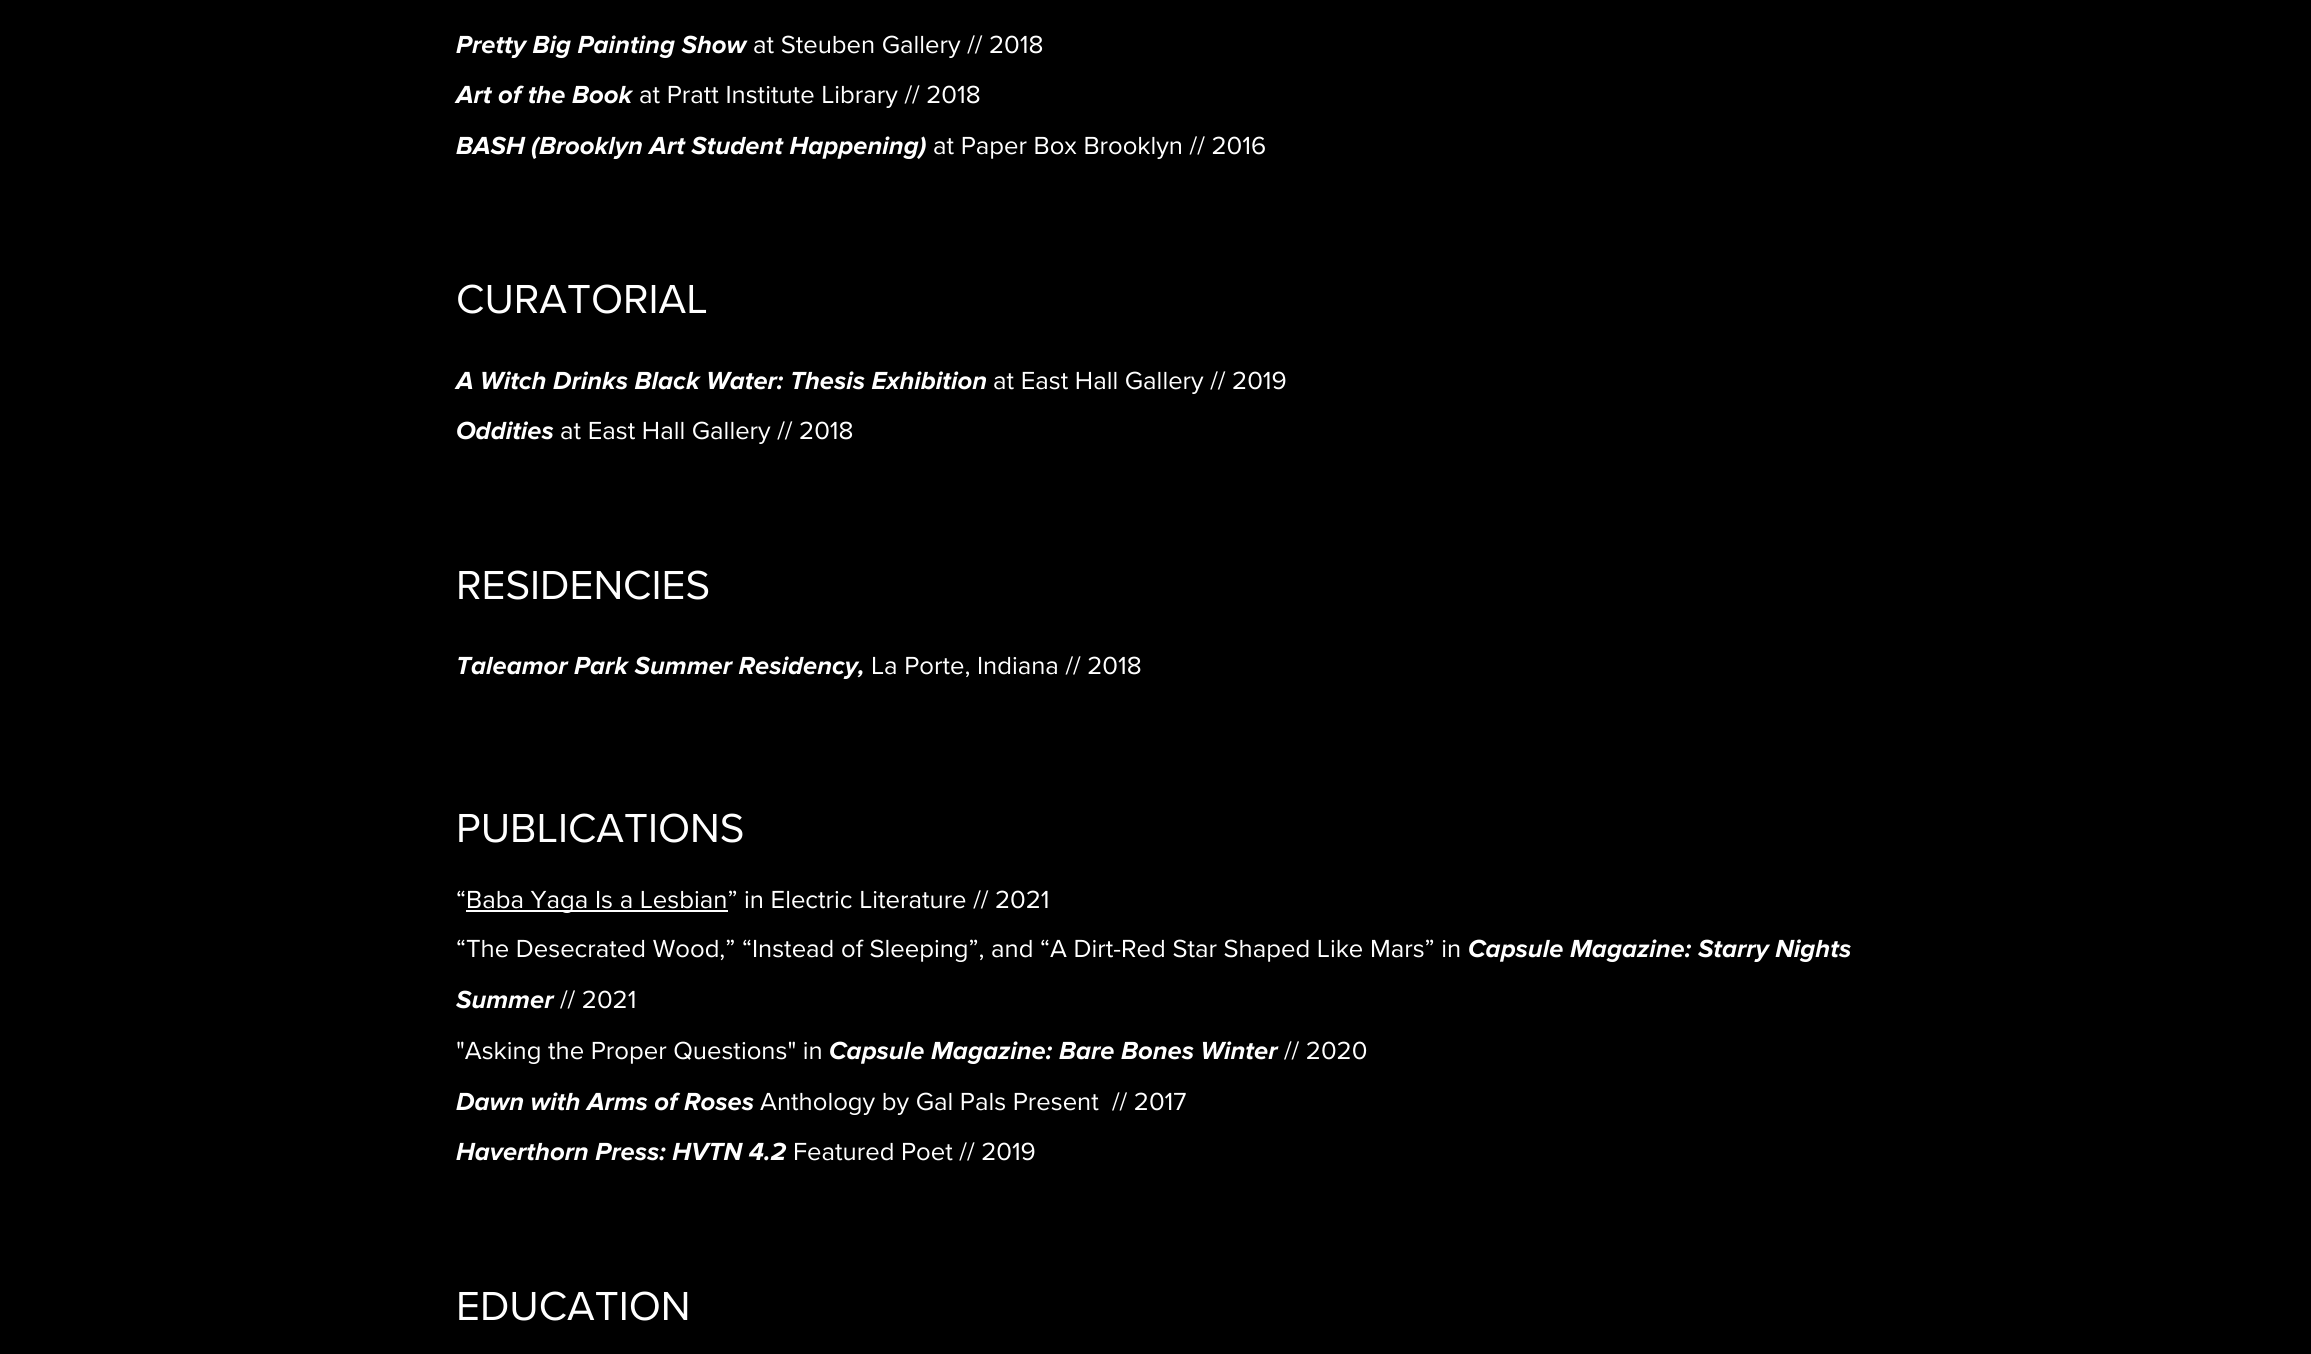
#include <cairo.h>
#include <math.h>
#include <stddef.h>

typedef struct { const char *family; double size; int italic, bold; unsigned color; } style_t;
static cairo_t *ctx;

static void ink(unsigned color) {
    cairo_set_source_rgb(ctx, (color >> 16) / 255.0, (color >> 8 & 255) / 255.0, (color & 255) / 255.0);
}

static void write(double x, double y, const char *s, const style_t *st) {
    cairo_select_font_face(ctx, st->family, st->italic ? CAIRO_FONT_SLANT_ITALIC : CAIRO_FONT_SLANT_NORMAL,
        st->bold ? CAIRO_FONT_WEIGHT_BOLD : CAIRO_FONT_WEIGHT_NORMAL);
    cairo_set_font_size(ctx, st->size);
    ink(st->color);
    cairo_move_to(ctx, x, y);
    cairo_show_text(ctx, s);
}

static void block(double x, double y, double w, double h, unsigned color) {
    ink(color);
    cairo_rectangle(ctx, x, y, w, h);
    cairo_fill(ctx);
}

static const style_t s1 = {"Proxima Nova", 25.65, 1, 1, 0xffffff};
static const style_t s2 = {"Proxima Nova", 25.65, 0, 0, 0xffffff};
static const style_t s3 = {"Proxima Nova", 42, 0, 0, 0xffffff};

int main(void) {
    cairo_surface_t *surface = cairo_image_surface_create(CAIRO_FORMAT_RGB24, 2311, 1354);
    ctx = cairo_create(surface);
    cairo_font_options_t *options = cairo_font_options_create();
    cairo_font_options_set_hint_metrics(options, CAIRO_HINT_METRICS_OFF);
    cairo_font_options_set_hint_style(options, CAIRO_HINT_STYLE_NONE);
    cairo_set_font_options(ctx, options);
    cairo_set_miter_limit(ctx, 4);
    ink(0x000000);
    cairo_paint(ctx);
    write(456, 53, "Pretty Big Painting Show", &s1);
    write(753, 53, "at Steuben Gallery // 2018", &s2);
    write(456, 103, "Art of the Book", &s1);
    write(639, 103, "at Pratt Institute Library // 2018", &s2);
    write(456, 154, "BASH (Brooklyn Art Student Happening)", &s1);
    write(933, 154, "at Paper Box Brooklyn // 2016", &s2);
    write(456, 313, "CURATORIAL", &s3);
    write(456, 389, "A Witch Drinks Black Water: Thesis Exhibition", &s1);
    write(993, 389, "at East Hall Gallery // 2019", &s2);
    write(456, 439, "Oddities", &s1);
    write(560, 439, "at East Hall Gallery // 2018", &s2);
    write(456, 599, "RESIDENCIES", &s3);
    write(456, 674, "Taleamor Park Summer Residency,", &s1);
    write(871, 674, "La Porte, Indiana // 2018", &s2);
    write(456, 842, "PUBLICATIONS", &s3);
    write(456, 908, "“", &s2);
    block(466, 910, 262, 2, 0xffffff);
    write(466, 908, "Baba Yaga Is a Lesbian” in Electric Literature // 2021", &s2);
    write(456, 957, "“The Desecrated Wood,” “Instead of Sleeping”, and “A Dirt-Red Star Shaped Like Mars” in", &s2);
    write(1468, 957, "Capsule Magazine: Starry Nights", &s1);
    write(456, 1008, "Summer", &s1);
    write(560, 1008, "// 2021", &s2);
    write(456, 1059, "\"Asking the Proper Questions\" in", &s2);
    write(829, 1059, "Capsule Magazine: Bare Bones Winter", &s1);
    write(1284, 1059, "// 2020", &s2);
    write(456, 1110, "Dawn with Arms of Roses", &s1);
    write(760, 1110, "Anthology by Gal Pals Present  // 2017", &s2);
    write(456, 1160, "Haverthorn Press: HVTN 4.2", &s1);
    write(793, 1160, "Featured Poet // 2019", &s2);
    write(456, 1320, "EDUCATION", &s3);
    cairo_surface_write_to_png(surface, "screenshot.png");
    cairo_font_options_destroy(options);
    cairo_destroy(ctx);
    cairo_surface_destroy(surface);
    return 0;
}
